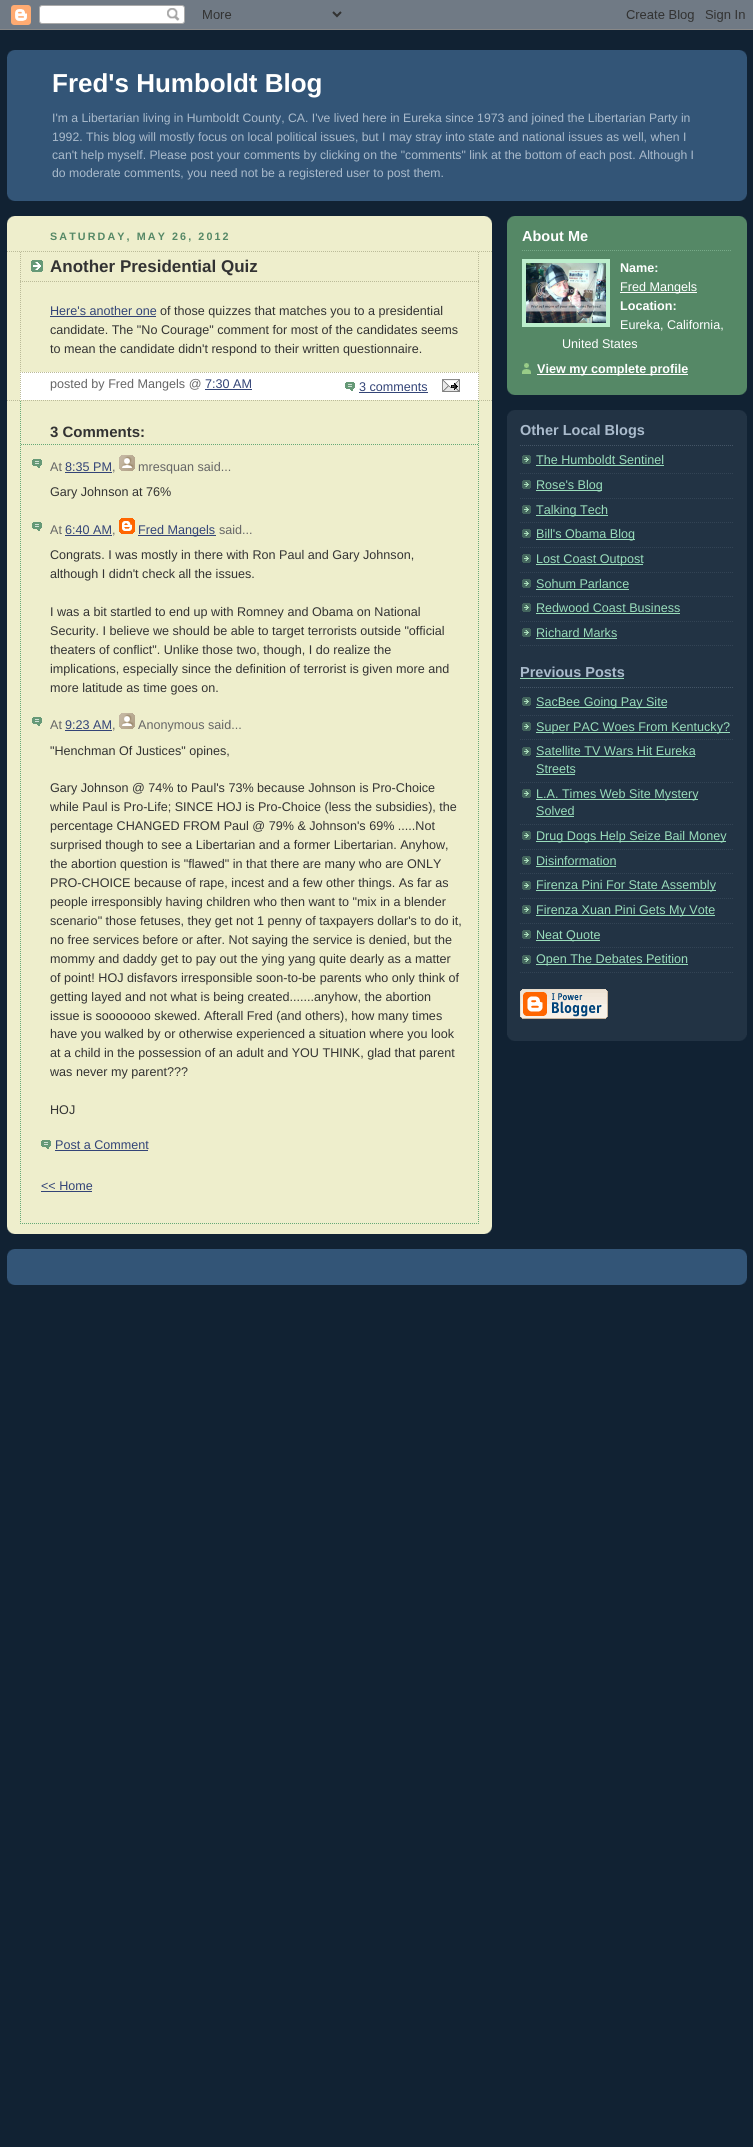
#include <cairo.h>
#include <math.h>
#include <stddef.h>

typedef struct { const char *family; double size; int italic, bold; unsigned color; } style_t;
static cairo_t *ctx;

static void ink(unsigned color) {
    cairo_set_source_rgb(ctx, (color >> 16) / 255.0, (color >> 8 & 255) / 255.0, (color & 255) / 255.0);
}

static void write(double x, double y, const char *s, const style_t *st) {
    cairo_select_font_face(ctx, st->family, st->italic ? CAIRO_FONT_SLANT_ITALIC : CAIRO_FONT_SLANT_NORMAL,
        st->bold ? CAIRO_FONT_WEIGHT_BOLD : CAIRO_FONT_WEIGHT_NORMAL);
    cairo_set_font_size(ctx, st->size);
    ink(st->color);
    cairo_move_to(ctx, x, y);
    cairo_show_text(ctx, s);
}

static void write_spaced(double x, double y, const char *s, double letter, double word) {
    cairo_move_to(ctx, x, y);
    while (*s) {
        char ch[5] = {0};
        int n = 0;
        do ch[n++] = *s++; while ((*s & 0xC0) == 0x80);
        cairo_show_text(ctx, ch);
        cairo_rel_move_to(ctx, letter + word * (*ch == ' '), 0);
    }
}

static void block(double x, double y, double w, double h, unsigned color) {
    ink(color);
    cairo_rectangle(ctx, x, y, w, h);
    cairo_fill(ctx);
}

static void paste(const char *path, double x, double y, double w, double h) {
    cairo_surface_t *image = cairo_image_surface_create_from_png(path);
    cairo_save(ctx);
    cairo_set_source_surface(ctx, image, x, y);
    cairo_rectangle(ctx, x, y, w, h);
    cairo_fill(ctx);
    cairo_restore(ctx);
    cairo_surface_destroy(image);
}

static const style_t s1 = {"Liberation Sans", 26, 0, 1, 0xffffff};
static const style_t s2 = {"Liberation Sans", 12.22, 0, 0, 0xaabbcc};
static const style_t s3 = {"Liberation Sans", 17, 0, 1, 0x333333};
static const style_t s4 = {"Liberation Sans", 12.6, 0, 0, 0x334477};
static const style_t s5 = {"Liberation Sans", 12.6, 0, 0, 0x333333};
static const style_t s6 = {"Liberation Sans", 12.6, 0, 0, 0x666666};
static const style_t s7 = {"Liberation Sans", 15, 0, 1, 0x333333};
static const style_t s8 = {"Liberation Sans", 14.5, 0, 1, 0xffffff};
static const style_t s9 = {"Liberation Sans", 12.6, 0, 1, 0xffffff};
static const style_t s10 = {"Liberation Sans", 12.6, 0, 0, 0xffffff};
static const style_t s11 = {"Liberation Sans", 14.5, 0, 1, 0xaabbcc};
static const style_t s12 = {"Liberation Sans", 12.6, 0, 0, 0x99ddbb};

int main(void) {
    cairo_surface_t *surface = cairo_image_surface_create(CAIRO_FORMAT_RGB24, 753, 2147);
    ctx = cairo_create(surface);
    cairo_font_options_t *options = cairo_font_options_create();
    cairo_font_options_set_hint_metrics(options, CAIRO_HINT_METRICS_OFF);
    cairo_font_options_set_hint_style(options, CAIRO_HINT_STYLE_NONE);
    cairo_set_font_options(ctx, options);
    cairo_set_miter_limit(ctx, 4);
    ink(0x112233);
    cairo_paint(ctx);
    paste("pic1.png", 0, 0, 753, 30);
    block(7, 50, 740, 151, 0x335577);
    paste("pic2.png", 7, 194, 740, 7);
    paste("pic3.png", 7, 50, 740, 7);
    write(52, 92, "Fred's Humboldt Blog", &s1);
    write(52, 122, "I'm a Libertarian living in Humboldt County, CA. I've lived here in Eureka since 1973 and joined the Libertarian Party in", &s2);
    write(52, 141, "1992. This blog will mostly focus on local political issues, but I may stray into state and national issues as well, when I", &s2);
    write(52, 159, "can't help myself. Please post your comments by clicking on the \"comments\" link at the bottom of each post. Although I", &s2);
    write(52, 177, "do moderate comments, you need not be a registered user to post them.", &s2);
    block(7, 216, 485, 1018, 0xeeeecc);
    paste("pic4.png", 7, 1226, 485, 8);
    paste("pic5.png", 7, 216, 485, 8);
    cairo_select_font_face(ctx, "Liberation Sans", CAIRO_FONT_SLANT_NORMAL, CAIRO_FONT_WEIGHT_BOLD);
    cairo_set_font_size(ctx, 10.75);
    ink(0x558866);
    write_spaced(50, 240, "SATURDAY, MAY 26, 2012", 2.1, 0);
    cairo_new_path(ctx);
    cairo_move_to(ctx, 7, 251.5);
    cairo_line_to(ctx, 492, 251.5);
    ink(0xbbbb99);
    cairo_set_line_width(ctx, 1);
    cairo_set_dash(ctx, (double[]){1, 1}, 2, 0);
    cairo_stroke(ctx);
    cairo_new_path(ctx);
    cairo_move_to(ctx, 7, 400.5);
    cairo_line_to(ctx, 492, 400.5);
    cairo_stroke(ctx);
    paste("pic6.png", 31, 260, 12, 12);
    cairo_new_path(ctx);
    cairo_move_to(ctx, 478.5, 252);
    cairo_line_to(ctx, 478.5, 282);
    cairo_stroke(ctx);
    cairo_new_path(ctx);
    cairo_move_to(ctx, 20, 281.5);
    cairo_line_to(ctx, 479, 281.5);
    cairo_stroke(ctx);
    cairo_new_path(ctx);
    cairo_move_to(ctx, 20.5, 252);
    cairo_line_to(ctx, 20.5, 282);
    cairo_stroke(ctx);
    write(50, 272, "Another Presidential Quiz", &s3);
    cairo_new_path(ctx);
    cairo_move_to(ctx, 478.5, 282);
    cairo_line_to(ctx, 478.5, 372);
    ink(0xbbbb99);
    cairo_stroke(ctx);
    cairo_new_path(ctx);
    cairo_move_to(ctx, 20.5, 282);
    cairo_line_to(ctx, 20.5, 372);
    cairo_stroke(ctx);
    write(50, 315, "Here's another one", &s4);
    block(50, 316, 106, 1, 0x334477);
    write(160, 315, "of those quizzes that matches you to a presidential", &s5);
    write(50, 334, "candidate. The \"No Courage\" comment for most of the candidates seems", &s5);
    write(50, 353, "to mean the candidate didn't respond to their written questionnaire.", &s5);
    block(20, 372, 459, 28, 0xffffff);
    cairo_new_path(ctx);
    cairo_move_to(ctx, 20, 372.5);
    cairo_line_to(ctx, 479, 372.5);
    ink(0xbbbb99);
    cairo_stroke(ctx);
    cairo_new_path(ctx);
    cairo_move_to(ctx, 478.5, 372);
    cairo_line_to(ctx, 478.5, 400);
    cairo_stroke(ctx);
    cairo_new_path(ctx);
    cairo_move_to(ctx, 20.5, 372);
    cairo_line_to(ctx, 20.5, 400);
    cairo_stroke(ctx);
    write(50, 388, "posted by Fred Mangels @", &s6);
    write(205, 388, "7:30 AM", &s4);
    block(205, 389, 47, 1, 0x334477);
    paste("pic7.png", 345, 382, 10, 9);
    write(359, 391, "3 comments", &s4);
    block(359, 392, 69, 1, 0x334477);
    paste("pic8.png", 442, 379, 18, 13);
    cairo_new_path(ctx);
    cairo_move_to(ctx, 478.5, 401);
    cairo_line_to(ctx, 478.5, 1224);
    ink(0x66aa77);
    cairo_stroke(ctx);
    cairo_new_path(ctx);
    cairo_move_to(ctx, 20, 1223.5);
    cairo_line_to(ctx, 479, 1223.5);
    cairo_stroke(ctx);
    cairo_new_path(ctx);
    cairo_move_to(ctx, 20.5, 401);
    cairo_line_to(ctx, 20.5, 1224);
    cairo_stroke(ctx);
    cairo_new_path(ctx);
    cairo_move_to(ctx, 21, 444.5);
    cairo_line_to(ctx, 478, 444.5);
    cairo_stroke(ctx);
    write(50, 437, "3 Comments:", &s7);
    paste("pic9.png", 32, 459, 10, 9);
    write(50, 471, "At", &s6);
    write(65, 471, "8:35 PM", &s4);
    block(65, 472, 47, 1, 0x334477);
    write(112, 471, ",", &s6);
    paste("pic10.png", 119, 455, 16, 16);
    write(138, 471, "mresquan said...", &s6);
    write(50, 496, "Gary Johnson at 76%", &s5);
    paste("pic9.png", 32, 522, 10, 9);
    write(50, 534, "At", &s6);
    write(65, 534, "6:40 AM", &s4);
    block(65, 535, 47, 1, 0x334477);
    write(112, 534, ",", &s6);
    paste("pic11.png", 119, 518, 16, 16);
    block(138, 535, 78, 1, 0x334477);
    write(138, 534, "Fred Mangels", &s4);
    write(219, 534, "said...", &s6);
    write(50, 559, "Congrats. I was mostly in there with Ron Paul and Gary Johnson,", &s5);
    write(50, 578, "although I didn't check all the issues.", &s5);
    write(50, 616, "I was a bit startled to end up with Romney and Obama on National", &s5);
    write(50, 635, "Security. I believe we should be able to target terrorists outside \"official", &s5);
    write(50, 654, "theaters of conflict\". Unlike those two, though, I do realize the", &s5);
    write(50, 673, "implications, especially since the definition of terrorist is given more and", &s5);
    write(50, 692, "more latitude as time goes on.", &s5);
    paste("pic9.png", 32, 717, 10, 9);
    write(50, 729, "At", &s6);
    write(65, 729, "9:23 AM", &s4);
    block(65, 730, 47, 1, 0x334477);
    write(112, 729, ",", &s6);
    paste("pic10.png", 119, 713, 16, 16);
    write(138, 729, "Anonymous said...", &s6);
    write(50, 755, "\"Henchman Of Justices\" opines,", &s5);
    write(50, 792, "Gary Johnson @ 74% to Paul's 73% because Johnson is Pro-Choice", &s5);
    write(50, 811, "while Paul is Pro-Life; SINCE HOJ is Pro-Choice (less the subsidies), the", &s5);
    write(50, 830, "percentage CHANGED FROM Paul @ 79% & Johnson's 69% .....Not", &s5);
    write(50, 849, "surprised though to see a Libertarian and a former Libertarian. Anyhow,", &s5);
    write(50, 868, "the abortion question is \"flawed\" in that there are many who are ONLY", &s5);
    write(50, 887, "PRO-CHOICE because of rape, incest and a few other things. As far as", &s5);
    write(50, 906, "people irresponsibly having children who then want to \"mix in a blender", &s5);
    write(50, 925, "scenario\" those fetuses, they get not 1 penny of taxpayers dollar's to do it,", &s5);
    write(50, 944, "no free services before or after. Not saying the service is denied, but the", &s5);
    write(50, 963, "mommy and daddy get to pay out the ying yang quite dearly as a matter", &s5);
    write(50, 982, "of point! HOJ disfavors irresponsible soon-to-be parents who only think of", &s5);
    write(50, 1001, "getting layed and not what is being created.......anyhow, the abortion", &s5);
    write(50, 1020, "issue is sooooooo skewed. Afterall Fred (and others), how many times", &s5);
    write(50, 1038, "have you walked by or otherwise experienced a situation where you look", &s5);
    write(50, 1057, "at a child in the possession of an adult and YOU THINK, glad that parent", &s5);
    write(50, 1076, "was never my parent?\077?", &s5);
    write(50, 1114, "HOJ", &s5);
    paste("pic9.png", 41, 1140, 10, 9);
    write(55, 1149, "Post a Comment", &s4);
    block(55, 1150, 93, 1, 0x334477);
    write(41, 1190, "<< Home", &s4);
    block(41, 1191, 51, 1, 0x334477);
    block(507, 216, 240, 179, 0x558866);
    paste("pic12.png", 507, 387, 240, 8);
    paste("pic13.png", 507, 216, 240, 8);
    write(522, 241, "About Me", &s8);
    cairo_new_path(ctx);
    cairo_move_to(ctx, 522, 250.5);
    cairo_line_to(ctx, 732, 250.5);
    ink(0x77aa88);
    cairo_stroke(ctx);
    cairo_rectangle(ctx, 524, 261, 84, 64);
    ink(0xbbeecc);
    cairo_set_line_width(ctx, 4);
    cairo_set_dash(ctx, NULL, 0, 0);
    cairo_stroke(ctx);
    paste("pic14.png", 526, 263, 80, 60);
    write(620, 272, "Name:", &s9);
    block(620, 292, 77, 1, 0xffffff);
    write(620, 291, "Fred Mangels", &s10);
    write(620, 310, "Location:", &s9);
    write(620, 329, "Eureka, California,", &s10);
    write(562, 348, "United States", &s10);
    paste("pic15.png", 522, 363, 9, 11);
    block(537, 374, 151, 1, 0xffffff);
    write(537, 373, "View my complete profile", &s9);
    block(507, 410, 240, 631, 0x223344);
    paste("pic16.png", 507, 410, 240, 6);
    paste("pic17.png", 507, 1035, 240, 6);
    cairo_new_path(ctx);
    cairo_move_to(ctx, 520, 445.5);
    cairo_line_to(ctx, 734, 445.5);
    ink(0x445566);
    cairo_set_line_width(ctx, 1);
    cairo_set_dash(ctx, (double[]){1, 1}, 2, 0);
    cairo_stroke(ctx);
    write(520, 435, "Other Local Blogs", &s11);
    paste("pic18.png", 522, 455, 9, 9);
    cairo_new_path(ctx);
    cairo_move_to(ctx, 520, 473.5);
    cairo_line_to(ctx, 734, 473.5);
    ink(0x334455);
    cairo_stroke(ctx);
    write(536, 464, "The Humboldt Sentinel", &s12);
    block(536, 465, 128, 1, 0x99ddbb);
    paste("pic18.png", 522, 480, 9, 9);
    cairo_new_path(ctx);
    cairo_move_to(ctx, 520, 498.5);
    cairo_line_to(ctx, 734, 498.5);
    ink(0x334455);
    cairo_stroke(ctx);
    block(536, 490, 66, 1, 0x99ddbb);
    write(536, 489, "Rose's Blog", &s12);
    paste("pic18.png", 522, 505, 9, 9);
    cairo_new_path(ctx);
    cairo_move_to(ctx, 520, 522.5);
    cairo_line_to(ctx, 734, 522.5);
    ink(0x334455);
    cairo_stroke(ctx);
    block(536, 515, 72, 1, 0x99ddbb);
    write(536, 514, "Talking Tech", &s12);
    paste("pic18.png", 522, 529, 9, 9);
    cairo_new_path(ctx);
    cairo_move_to(ctx, 520, 547.5);
    cairo_line_to(ctx, 734, 547.5);
    ink(0x334455);
    cairo_stroke(ctx);
    block(536, 539, 99, 1, 0x99ddbb);
    write(536, 538, "Bill's Obama Blog", &s12);
    paste("pic18.png", 522, 554, 9, 9);
    cairo_new_path(ctx);
    cairo_move_to(ctx, 520, 572.5);
    cairo_line_to(ctx, 734, 572.5);
    ink(0x334455);
    cairo_stroke(ctx);
    block(536, 564, 107, 1, 0x99ddbb);
    write(536, 563, "Lost Coast Outpost", &s12);
    paste("pic18.png", 522, 579, 9, 9);
    cairo_new_path(ctx);
    cairo_move_to(ctx, 520, 596.5);
    cairo_line_to(ctx, 734, 596.5);
    ink(0x334455);
    cairo_stroke(ctx);
    write(536, 588, "Sohum Parlance", &s12);
    block(536, 589, 93, 1, 0x99ddbb);
    paste("pic18.png", 522, 603, 9, 9);
    cairo_new_path(ctx);
    cairo_move_to(ctx, 520, 621.5);
    cairo_line_to(ctx, 734, 621.5);
    ink(0x334455);
    cairo_stroke(ctx);
    write(536, 612, "Redwood Coast Business", &s12);
    block(536, 613, 144, 1, 0x99ddbb);
    paste("pic18.png", 522, 628, 9, 9);
    cairo_new_path(ctx);
    cairo_move_to(ctx, 520, 645.5);
    cairo_line_to(ctx, 734, 645.5);
    ink(0x334455);
    cairo_stroke(ctx);
    write(536, 637, "Richard Marks", &s12);
    block(536, 638, 81, 1, 0x99ddbb);
    cairo_new_path(ctx);
    cairo_move_to(ctx, 520, 687.5);
    cairo_line_to(ctx, 734, 687.5);
    ink(0x445566);
    cairo_stroke(ctx);
    write(520, 677, "Previous Posts", &s11);
    block(520, 678, 104, 1, 0x99ddbb);
    paste("pic18.png", 522, 697, 9, 9);
    cairo_new_path(ctx);
    cairo_move_to(ctx, 520, 715.5);
    cairo_line_to(ctx, 734, 715.5);
    ink(0x334455);
    cairo_stroke(ctx);
    block(536, 707, 131, 1, 0x99ddbb);
    write(536, 706, "SacBee Going Pay Site", &s12);
    paste("pic18.png", 522, 722, 9, 9);
    cairo_new_path(ctx);
    cairo_move_to(ctx, 520, 739.5);
    cairo_line_to(ctx, 734, 739.5);
    ink(0x334455);
    cairo_stroke(ctx);
    block(536, 732, 194, 1, 0x99ddbb);
    write(536, 731, "Super PAC Woes From Kentucky?", &s12);
    paste("pic18.png", 522, 747, 9, 9);
    cairo_new_path(ctx);
    cairo_move_to(ctx, 520, 782.5);
    cairo_line_to(ctx, 734, 782.5);
    ink(0x334455);
    cairo_stroke(ctx);
    write(536, 755, "Satellite TV Wars Hit Eureka", &s12);
    block(536, 756, 159, 1, 0x99ddbb);
    write(536, 773, "Streets", &s12);
    block(536, 774, 39, 1, 0x99ddbb);
    paste("pic18.png", 522, 789, 9, 9);
    cairo_new_path(ctx);
    cairo_move_to(ctx, 520, 824.5);
    cairo_line_to(ctx, 734, 824.5);
    ink(0x334455);
    cairo_stroke(ctx);
    block(536, 799, 162, 1, 0x99ddbb);
    write(536, 798, "L.A. Times Web Site Mystery", &s12);
    write(536, 815, "Solved", &s12);
    block(536, 816, 38, 1, 0x99ddbb);
    paste("pic18.png", 522, 831, 9, 9);
    cairo_new_path(ctx);
    cairo_move_to(ctx, 520, 849.5);
    cairo_line_to(ctx, 734, 849.5);
    ink(0x334455);
    cairo_stroke(ctx);
    block(536, 841, 190, 1, 0x99ddbb);
    write(536, 840, "Drug Dogs Help Seize Bail Money", &s12);
    paste("pic18.png", 522, 856, 9, 9);
    cairo_new_path(ctx);
    cairo_move_to(ctx, 520, 873.5);
    cairo_line_to(ctx, 734, 873.5);
    ink(0x334455);
    cairo_stroke(ctx);
    write(536, 865, "Disinformation", &s12);
    block(536, 866, 80, 1, 0x99ddbb);
    paste("pic18.png", 522, 881, 9, 9);
    cairo_new_path(ctx);
    cairo_move_to(ctx, 520, 898.5);
    cairo_line_to(ctx, 734, 898.5);
    ink(0x334455);
    cairo_stroke(ctx);
    block(536, 890, 180, 1, 0x99ddbb);
    write(536, 889, "Firenza Pini For State Assembly", &s12);
    paste("pic18.png", 522, 905, 9, 9);
    cairo_new_path(ctx);
    cairo_move_to(ctx, 520, 923.5);
    cairo_line_to(ctx, 734, 923.5);
    ink(0x334455);
    cairo_stroke(ctx);
    block(536, 915, 179, 1, 0x99ddbb);
    write(536, 914, "Firenza Xuan Pini Gets My Vote", &s12);
    paste("pic18.png", 522, 930, 9, 9);
    cairo_new_path(ctx);
    cairo_move_to(ctx, 520, 947.5);
    cairo_line_to(ctx, 734, 947.5);
    ink(0x334455);
    cairo_stroke(ctx);
    block(536, 940, 64, 1, 0x99ddbb);
    write(536, 939, "Neat Quote", &s12);
    paste("pic18.png", 522, 955, 9, 9);
    cairo_new_path(ctx);
    cairo_move_to(ctx, 520, 972.5);
    cairo_line_to(ctx, 734, 972.5);
    ink(0x334455);
    cairo_stroke(ctx);
    block(536, 964, 152, 1, 0x99ddbb);
    write(536, 963, "Open The Debates Petition", &s12);
    paste("pic19.png", 520, 989, 88, 30);
    block(7, 1249, 740, 36, 0x335577);
    paste("pic3.png", 7, 1249, 740, 7);
    paste("pic2.png", 7, 1278, 740, 7);
    cairo_surface_write_to_png(surface, "screenshot.png");
    cairo_font_options_destroy(options);
    cairo_destroy(ctx);
    cairo_surface_destroy(surface);
    return 0;
}
